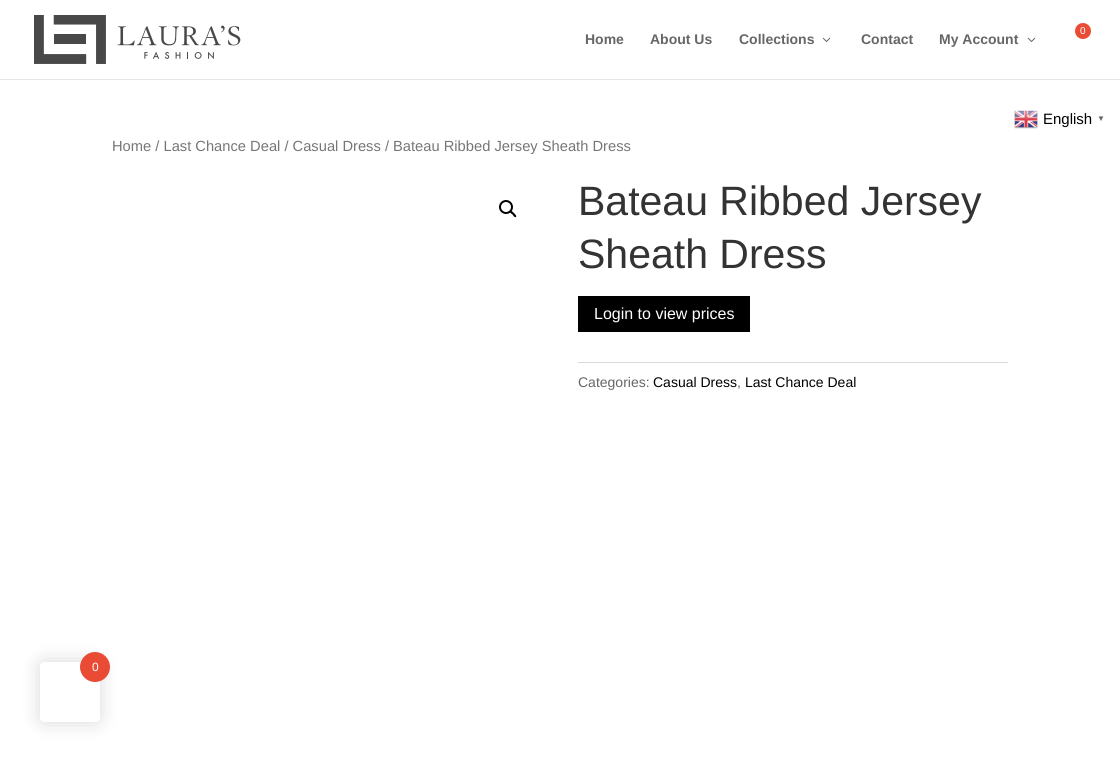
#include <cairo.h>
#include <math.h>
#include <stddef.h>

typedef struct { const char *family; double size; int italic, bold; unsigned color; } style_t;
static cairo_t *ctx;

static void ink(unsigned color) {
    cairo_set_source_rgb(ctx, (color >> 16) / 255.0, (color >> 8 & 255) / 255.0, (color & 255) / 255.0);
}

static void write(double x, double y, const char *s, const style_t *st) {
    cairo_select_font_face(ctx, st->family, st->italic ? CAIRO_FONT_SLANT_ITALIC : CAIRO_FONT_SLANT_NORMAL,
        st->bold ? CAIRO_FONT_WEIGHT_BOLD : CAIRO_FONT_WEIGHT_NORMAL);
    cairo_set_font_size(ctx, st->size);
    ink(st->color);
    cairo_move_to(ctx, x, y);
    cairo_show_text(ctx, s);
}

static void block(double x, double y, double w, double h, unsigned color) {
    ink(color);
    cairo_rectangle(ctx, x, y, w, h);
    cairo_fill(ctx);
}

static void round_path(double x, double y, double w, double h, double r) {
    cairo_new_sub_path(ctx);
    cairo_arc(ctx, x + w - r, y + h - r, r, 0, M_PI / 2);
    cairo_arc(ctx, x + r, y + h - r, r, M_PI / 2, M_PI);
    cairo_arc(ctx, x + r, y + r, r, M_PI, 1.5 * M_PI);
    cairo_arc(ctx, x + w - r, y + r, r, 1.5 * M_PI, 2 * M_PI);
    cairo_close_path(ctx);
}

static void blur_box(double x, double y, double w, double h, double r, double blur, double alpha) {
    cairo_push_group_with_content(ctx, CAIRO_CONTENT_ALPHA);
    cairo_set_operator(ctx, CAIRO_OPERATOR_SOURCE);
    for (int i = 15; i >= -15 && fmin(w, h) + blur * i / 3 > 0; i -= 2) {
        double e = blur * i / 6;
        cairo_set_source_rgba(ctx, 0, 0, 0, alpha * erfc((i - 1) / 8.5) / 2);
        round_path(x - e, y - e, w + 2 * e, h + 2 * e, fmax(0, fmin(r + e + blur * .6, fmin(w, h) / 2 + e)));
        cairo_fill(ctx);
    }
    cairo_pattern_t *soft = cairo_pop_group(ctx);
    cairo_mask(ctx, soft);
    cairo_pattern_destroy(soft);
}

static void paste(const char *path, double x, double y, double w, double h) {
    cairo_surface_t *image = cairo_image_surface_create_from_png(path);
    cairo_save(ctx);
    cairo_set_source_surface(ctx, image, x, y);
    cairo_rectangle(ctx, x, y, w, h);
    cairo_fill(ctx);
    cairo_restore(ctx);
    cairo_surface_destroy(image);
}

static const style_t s1 = {"Liberation Sans", 10, 0, 0, 0xffffff};
static const style_t s2 = {"Liberation Sans", 14, 0, 1, 0x666666};
static const style_t s3 = {"Liberation Sans", 14.7, 0, 0, 0x767676};
static const style_t s4 = {"Liberation Sans", 41, 0, 0, 0x333333};
static const style_t s5 = {"Liberation Sans", 16, 0, 0, 0xffffff};
static const style_t s6 = {"Liberation Sans", 14, 0, 0, 0x666666};
static const style_t s7 = {"Liberation Sans", 14, 0, 0, 0x000000};
static const style_t s8 = {"Liberation Sans", 15, 0, 0, 0x000000};
static const style_t s9 = {"Liberation Sans", 8, 0, 1, 0x666666};
static const style_t s10 = {"Liberation Sans", 12, 0, 0, 0xffffff};

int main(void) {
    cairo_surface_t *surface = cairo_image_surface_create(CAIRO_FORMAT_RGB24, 1120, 762);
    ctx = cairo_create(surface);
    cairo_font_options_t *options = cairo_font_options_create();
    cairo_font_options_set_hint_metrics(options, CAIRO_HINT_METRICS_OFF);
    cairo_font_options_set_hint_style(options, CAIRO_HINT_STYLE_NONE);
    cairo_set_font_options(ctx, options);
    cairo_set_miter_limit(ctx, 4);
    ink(0xffffff);
    cairo_paint(ctx);
    block(0, 79, 1120, 1, 0xe6e6e6);
    paste("pic1.png", 34, 15, 207, 49);
    ink(0xe94b35);
    cairo_arc(ctx, 1083, 31, 8, 0, 2 * M_PI);
    cairo_fill(ctx);
    write(1080, 34, "0", &s1);
    write(585, 44, "Home", &s2);
    write(650, 44, "About Us", &s2);
    write(739, 44, "Collections", &s2);
    paste("pic2.png", 822, 37, 9, 5);
    write(861, 44, "Contact", &s2);
    write(939, 44, "My Account", &s2);
    paste("pic2.png", 1027, 37, 9, 5);
    write(112, 151, "Home / Last Chance Deal / Casual Dress / Bateau Ribbed Jersey Sheath Dress", &s3);
    cairo_new_path(ctx);
    cairo_arc(ctx, 506, 207, 6, 0, 2 * M_PI);
    ink(0x000000);
    cairo_stroke(ctx);
    cairo_new_path(ctx);
    cairo_move_to(ctx, 510, 211);
    cairo_curve_to(ctx, 511.5, 210, 513, 212.5, 514, 213);
    cairo_curve_to(ctx, 514.5, 214, 517, 215.5, 516, 217);
    cairo_curve_to(ctx, 514.5, 218, 513, 215, 512.5, 214.5);
    cairo_curve_to(ctx, 512, 214, 509, 212.5, 510, 211);
    cairo_close_path(ctx);
    cairo_fill(ctx);
    write(578, 215, "Bateau Ribbed Jersey", &s4);
    write(578, 268, "Sheath Dress", &s4);
    block(578, 296, 172, 36, 0x000000);
    write(594, 319, "Login to view prices", &s5);
    block(578, 362, 430, 1, 0xdadada);
    write(578, 387, "Categories:", &s6);
    write(653, 387, "Casual Dress", &s7);
    write(737, 387, ",", &s6);
    write(745, 387, "Last Chance Deal", &s7);
    paste("pic3.png", 1014, 110, 24, 19);
    write(1043, 124, "English", &s8);
    write(1097, 121, "▼", &s9);
    ink(0x000000);
    blur_box(40, 662, 60, 60, 4, 10, 0.15);
    ink(0xffffff);
    round_path(40, 662, 60, 60, 4);
    cairo_fill(ctx);
    ink(0xe94b35);
    cairo_arc(ctx, 95, 667, 15, 0, 2 * M_PI);
    cairo_fill(ctx);
    write(92, 671, "0", &s10);
    cairo_surface_write_to_png(surface, "screenshot.png");
    cairo_font_options_destroy(options);
    cairo_destroy(ctx);
    cairo_surface_destroy(surface);
    return 0;
}
